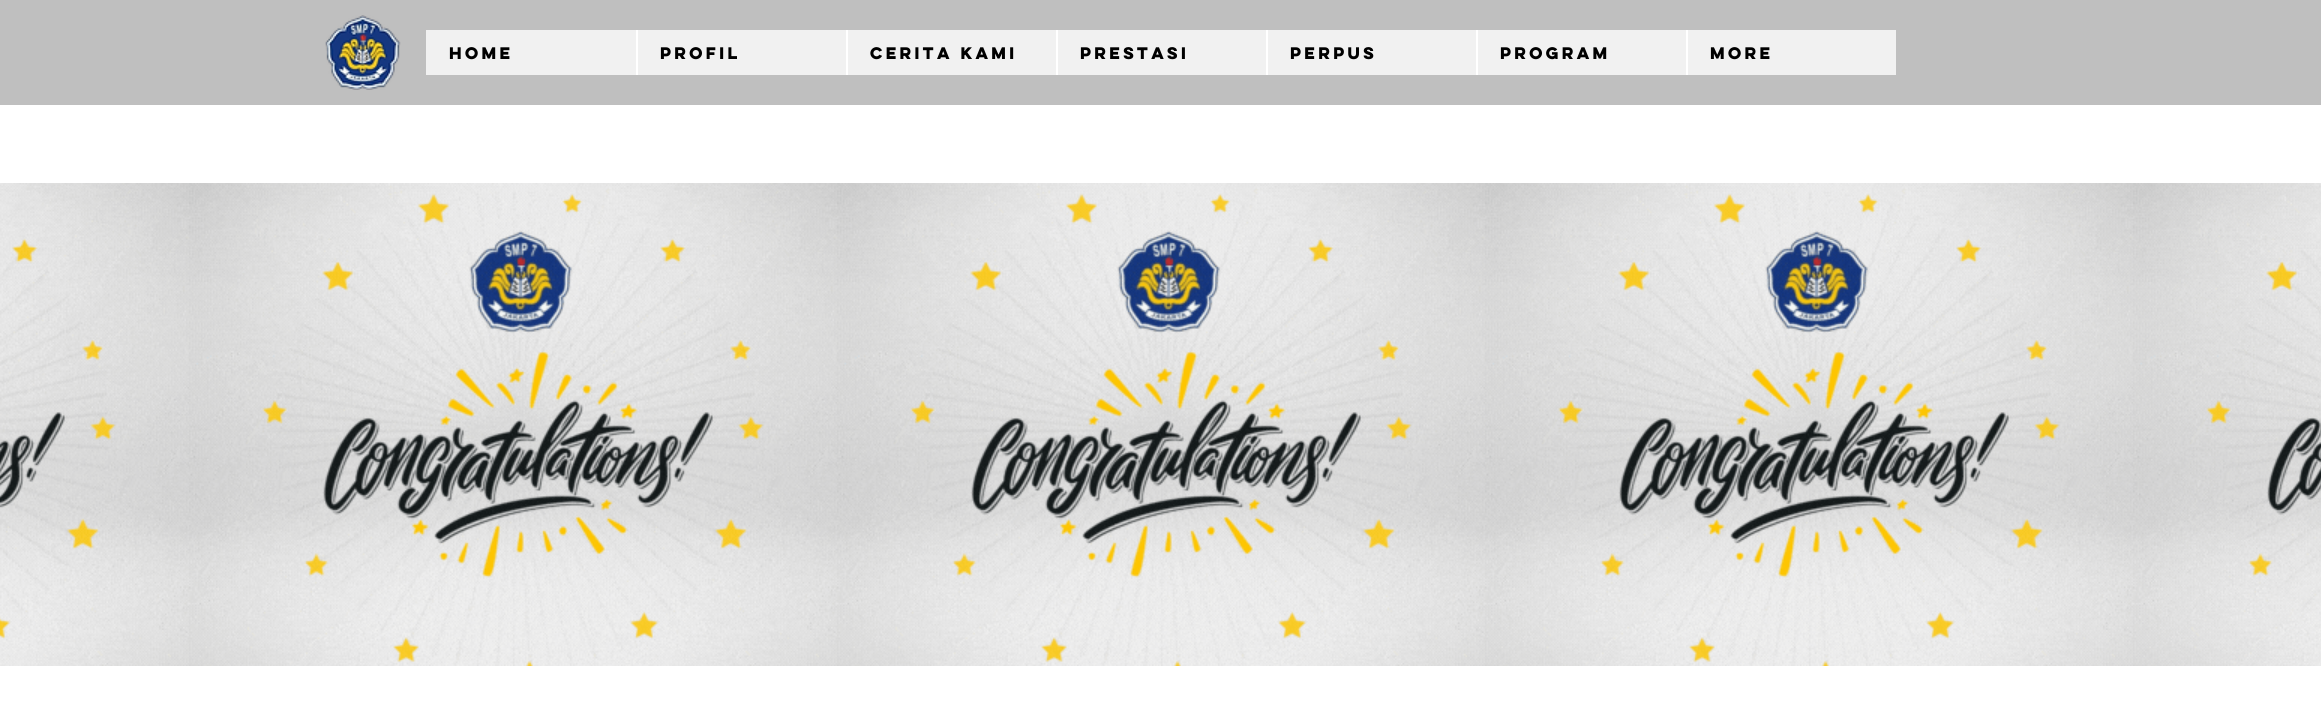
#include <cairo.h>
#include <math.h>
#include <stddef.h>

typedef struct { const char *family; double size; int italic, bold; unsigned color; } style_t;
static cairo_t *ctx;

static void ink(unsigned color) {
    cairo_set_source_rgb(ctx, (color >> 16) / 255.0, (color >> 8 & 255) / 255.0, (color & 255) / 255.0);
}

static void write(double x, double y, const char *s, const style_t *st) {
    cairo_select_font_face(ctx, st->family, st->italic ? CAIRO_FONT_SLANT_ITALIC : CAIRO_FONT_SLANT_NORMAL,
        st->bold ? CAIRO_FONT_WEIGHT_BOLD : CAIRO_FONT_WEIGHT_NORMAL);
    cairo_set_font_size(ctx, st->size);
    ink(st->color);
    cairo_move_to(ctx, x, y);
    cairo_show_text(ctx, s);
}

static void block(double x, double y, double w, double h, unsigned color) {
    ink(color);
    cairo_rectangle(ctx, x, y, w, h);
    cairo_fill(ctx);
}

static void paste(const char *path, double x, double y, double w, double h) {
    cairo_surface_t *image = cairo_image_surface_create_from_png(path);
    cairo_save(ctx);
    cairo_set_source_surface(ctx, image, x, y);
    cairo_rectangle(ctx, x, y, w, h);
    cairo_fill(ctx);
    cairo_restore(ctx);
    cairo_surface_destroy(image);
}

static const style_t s1 = {"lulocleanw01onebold", 15, 0, 1, 0x000000};

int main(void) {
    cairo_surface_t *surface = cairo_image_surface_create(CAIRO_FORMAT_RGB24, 2321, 721);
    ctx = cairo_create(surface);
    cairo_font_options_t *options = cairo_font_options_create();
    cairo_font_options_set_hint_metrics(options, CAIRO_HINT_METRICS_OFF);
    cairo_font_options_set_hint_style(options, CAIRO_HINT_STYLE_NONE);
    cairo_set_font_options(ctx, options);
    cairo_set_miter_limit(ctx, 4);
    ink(0xbfbfbf);
    cairo_paint(ctx);
    paste("pic1.png", 325, 15, 76, 75);
    block(426, 30, 1470, 45, 0xf1f1f1);
    write(449, 59, "Home", &s1);
    block(636, 30, 2, 45, 0xffffff);
    write(660, 59, "Profil", &s1);
    block(846, 30, 2, 45, 0xffffff);
    write(870, 59, "Cerita Kami", &s1);
    block(1056, 30, 2, 45, 0xffffff);
    write(1080, 59, "Prestasi", &s1);
    block(1266, 30, 2, 45, 0xffffff);
    write(1290, 59, "Perpus", &s1);
    block(1476, 30, 2, 45, 0xffffff);
    write(1500, 59, "Program", &s1);
    block(1686, 30, 2, 45, 0xffffff);
    write(1710, 59, "More", &s1);
    block(0, 105, 2321, 616, 0xffffff);
    paste("pic2.png", 0, 183, 2321, 483);
    cairo_surface_write_to_png(surface, "screenshot.png");
    cairo_font_options_destroy(options);
    cairo_destroy(ctx);
    cairo_surface_destroy(surface);
    return 0;
}
